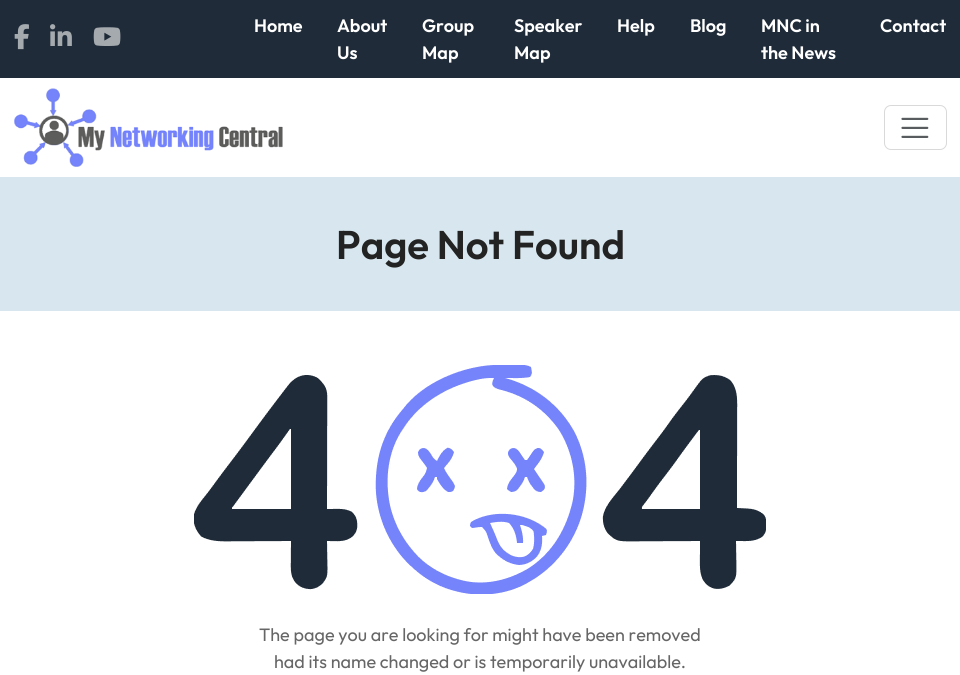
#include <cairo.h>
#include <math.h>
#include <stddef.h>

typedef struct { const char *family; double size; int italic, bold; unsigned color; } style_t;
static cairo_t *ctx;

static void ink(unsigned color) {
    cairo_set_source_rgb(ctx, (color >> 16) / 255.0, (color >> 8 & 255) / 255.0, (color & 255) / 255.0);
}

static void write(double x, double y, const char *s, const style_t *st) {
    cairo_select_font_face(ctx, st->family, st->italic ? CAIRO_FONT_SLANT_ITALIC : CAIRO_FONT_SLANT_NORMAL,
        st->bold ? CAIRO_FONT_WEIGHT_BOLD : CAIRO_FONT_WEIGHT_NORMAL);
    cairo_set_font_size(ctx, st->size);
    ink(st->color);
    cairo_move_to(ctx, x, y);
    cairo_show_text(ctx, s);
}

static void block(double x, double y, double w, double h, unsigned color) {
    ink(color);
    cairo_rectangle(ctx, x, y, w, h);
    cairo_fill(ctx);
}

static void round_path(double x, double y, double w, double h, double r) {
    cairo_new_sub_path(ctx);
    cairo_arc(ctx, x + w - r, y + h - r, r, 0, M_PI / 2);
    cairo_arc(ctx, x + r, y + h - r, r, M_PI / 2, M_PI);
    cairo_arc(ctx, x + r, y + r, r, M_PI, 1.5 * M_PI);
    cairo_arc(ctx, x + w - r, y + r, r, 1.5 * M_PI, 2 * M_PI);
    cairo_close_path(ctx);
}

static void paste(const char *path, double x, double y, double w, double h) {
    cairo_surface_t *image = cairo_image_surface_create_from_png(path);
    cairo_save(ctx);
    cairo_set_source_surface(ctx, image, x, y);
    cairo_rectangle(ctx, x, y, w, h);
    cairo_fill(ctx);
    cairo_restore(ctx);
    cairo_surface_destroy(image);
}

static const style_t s1 = {"Outfit SemiBold", 18, 0, 0, 0xffffff};
static const style_t s2 = {"Outfit SemiBold", 40, 0, 0, 0x232323};
static const style_t s3 = {"Outfit", 18, 0, 0, 0x666666};

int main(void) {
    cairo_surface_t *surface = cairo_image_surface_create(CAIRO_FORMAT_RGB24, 960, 675);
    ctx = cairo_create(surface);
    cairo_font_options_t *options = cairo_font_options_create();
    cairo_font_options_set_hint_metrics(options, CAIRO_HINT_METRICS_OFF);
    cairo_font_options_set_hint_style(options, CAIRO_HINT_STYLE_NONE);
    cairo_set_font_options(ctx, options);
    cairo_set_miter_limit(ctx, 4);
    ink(0xffffff);
    cairo_paint(ctx);
    block(0, 0, 960, 78, 0x1f2b38);
    paste("pic1.png", 14, 24, 15, 26);
    paste("pic2.png", 50, 24, 22, 22);
    paste("pic3.png", 93, 27, 28, 19);
    write(254, 32, "Home", &s1);
    write(337, 32, "About", &s1);
    write(337, 59, "Us", &s1);
    write(422, 32, "Group", &s1);
    write(422, 59, "Map", &s1);
    write(514, 32, "Speaker", &s1);
    write(514, 59, "Map", &s1);
    write(617, 32, "Help", &s1);
    write(690, 32, "Blog", &s1);
    write(761, 32, "MNC in", &s1);
    write(761, 59, "the News", &s1);
    write(880, 32, "Contact", &s1);
    paste("pic4.png", 14, 88, 269, 79);
    round_path(884.5, 105.5, 62, 44, 6.5);
    ink(0xd9d9d9);
    cairo_set_line_width(ctx, 1);
    cairo_stroke(ctx);
    paste("pic5.png", 901, 117, 28, 21);
    block(0, 177, 960, 134, 0xd8e7ef);
    write(336, 259, "Page Not Found", &s2);
    paste("pic6.png", 194, 365, 572, 229);
    write(259, 641, "The page you are looking for might have been removed", &s3);
    write(274, 668, "had its name changed or is temporarily unavailable.", &s3);
    cairo_surface_write_to_png(surface, "screenshot.png");
    cairo_font_options_destroy(options);
    cairo_destroy(ctx);
    cairo_surface_destroy(surface);
    return 0;
}
